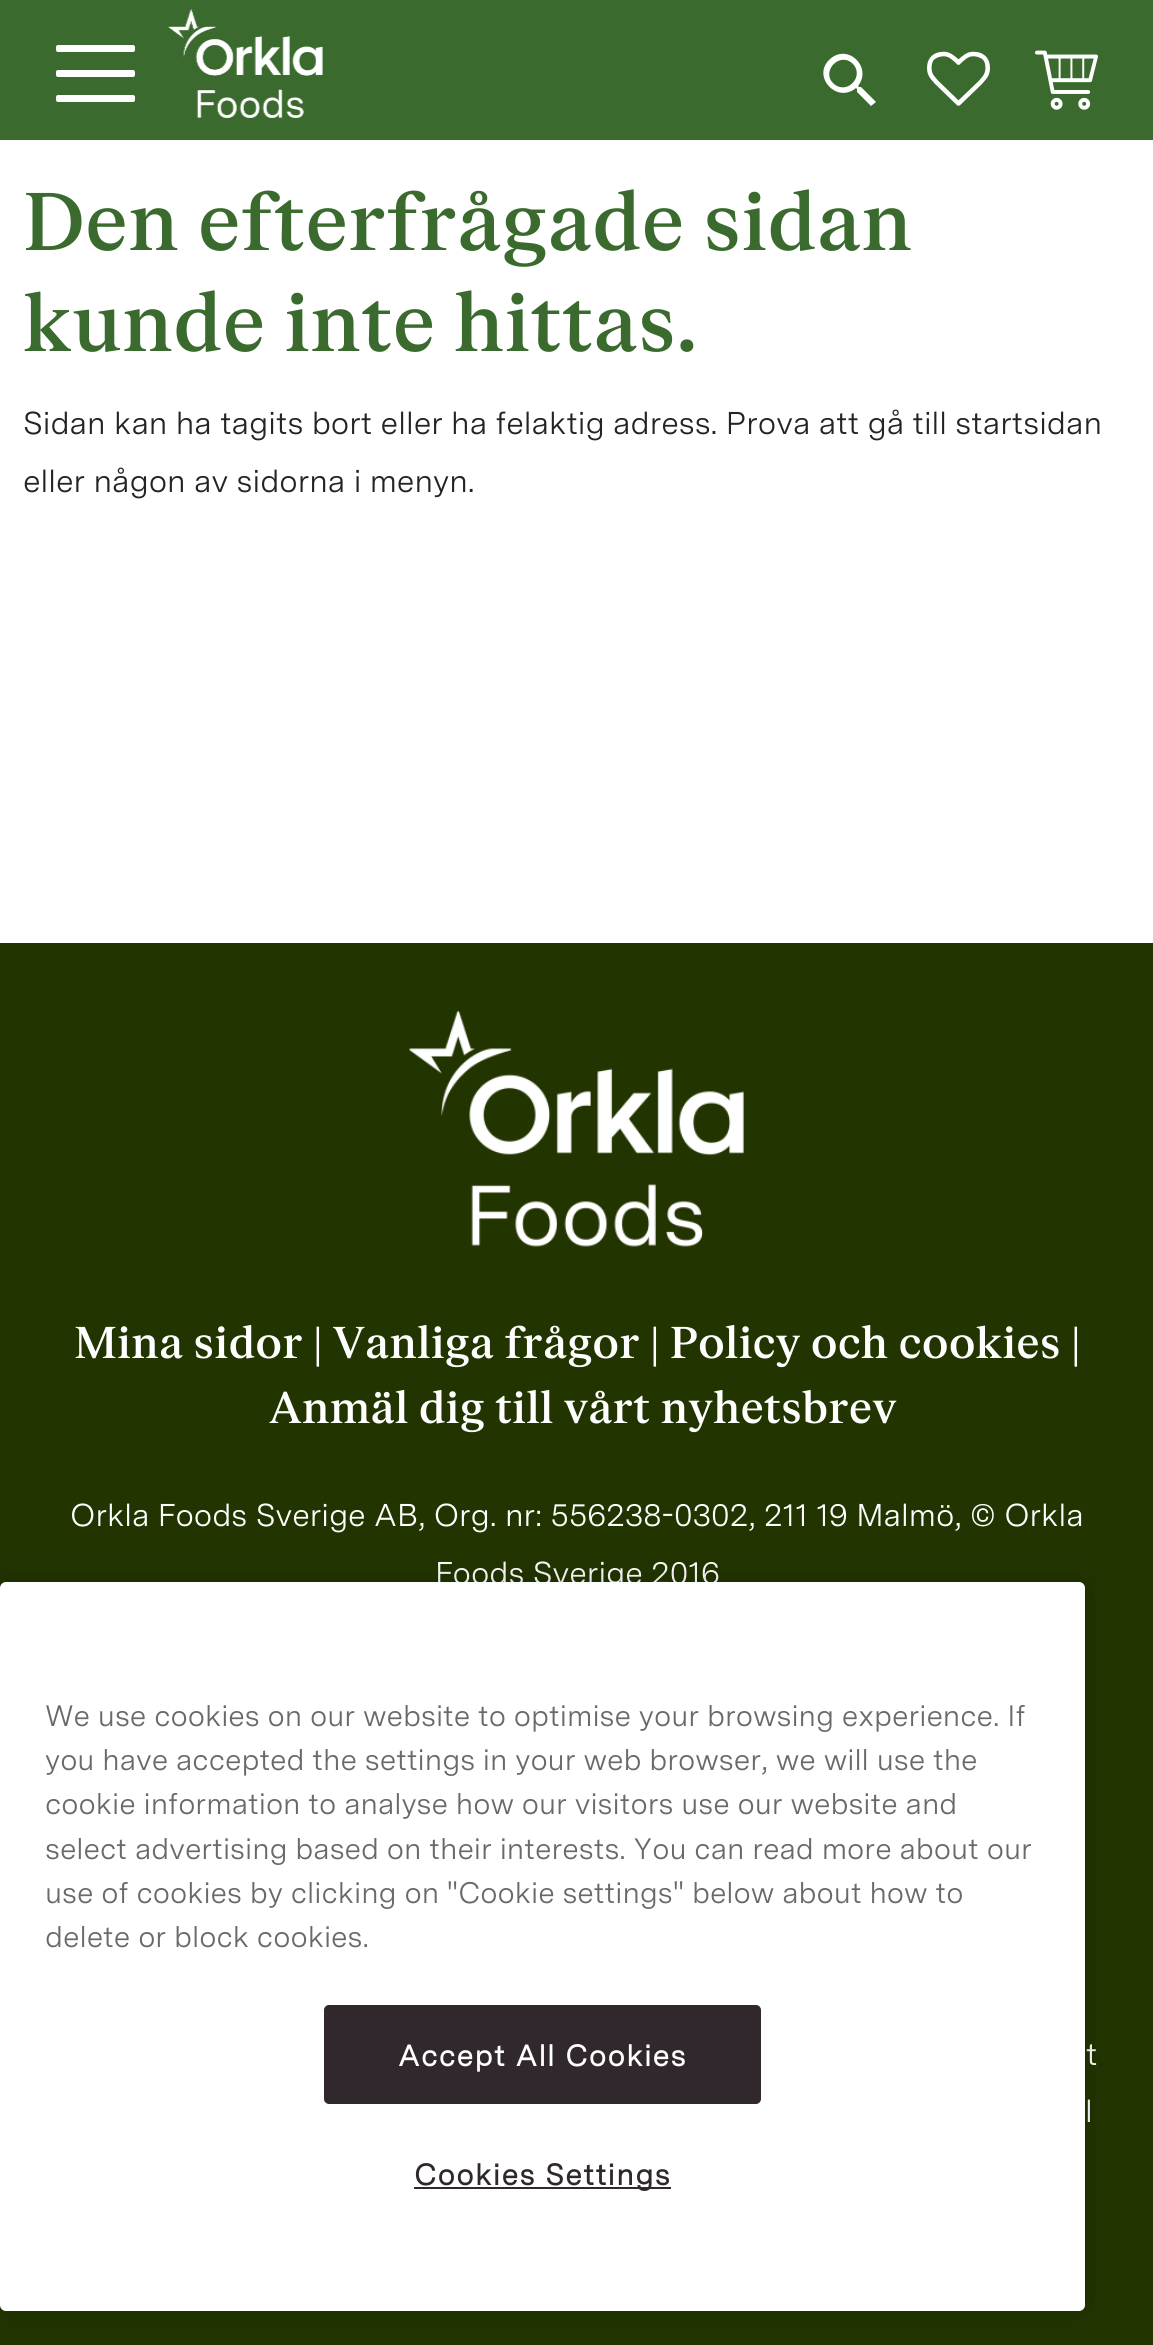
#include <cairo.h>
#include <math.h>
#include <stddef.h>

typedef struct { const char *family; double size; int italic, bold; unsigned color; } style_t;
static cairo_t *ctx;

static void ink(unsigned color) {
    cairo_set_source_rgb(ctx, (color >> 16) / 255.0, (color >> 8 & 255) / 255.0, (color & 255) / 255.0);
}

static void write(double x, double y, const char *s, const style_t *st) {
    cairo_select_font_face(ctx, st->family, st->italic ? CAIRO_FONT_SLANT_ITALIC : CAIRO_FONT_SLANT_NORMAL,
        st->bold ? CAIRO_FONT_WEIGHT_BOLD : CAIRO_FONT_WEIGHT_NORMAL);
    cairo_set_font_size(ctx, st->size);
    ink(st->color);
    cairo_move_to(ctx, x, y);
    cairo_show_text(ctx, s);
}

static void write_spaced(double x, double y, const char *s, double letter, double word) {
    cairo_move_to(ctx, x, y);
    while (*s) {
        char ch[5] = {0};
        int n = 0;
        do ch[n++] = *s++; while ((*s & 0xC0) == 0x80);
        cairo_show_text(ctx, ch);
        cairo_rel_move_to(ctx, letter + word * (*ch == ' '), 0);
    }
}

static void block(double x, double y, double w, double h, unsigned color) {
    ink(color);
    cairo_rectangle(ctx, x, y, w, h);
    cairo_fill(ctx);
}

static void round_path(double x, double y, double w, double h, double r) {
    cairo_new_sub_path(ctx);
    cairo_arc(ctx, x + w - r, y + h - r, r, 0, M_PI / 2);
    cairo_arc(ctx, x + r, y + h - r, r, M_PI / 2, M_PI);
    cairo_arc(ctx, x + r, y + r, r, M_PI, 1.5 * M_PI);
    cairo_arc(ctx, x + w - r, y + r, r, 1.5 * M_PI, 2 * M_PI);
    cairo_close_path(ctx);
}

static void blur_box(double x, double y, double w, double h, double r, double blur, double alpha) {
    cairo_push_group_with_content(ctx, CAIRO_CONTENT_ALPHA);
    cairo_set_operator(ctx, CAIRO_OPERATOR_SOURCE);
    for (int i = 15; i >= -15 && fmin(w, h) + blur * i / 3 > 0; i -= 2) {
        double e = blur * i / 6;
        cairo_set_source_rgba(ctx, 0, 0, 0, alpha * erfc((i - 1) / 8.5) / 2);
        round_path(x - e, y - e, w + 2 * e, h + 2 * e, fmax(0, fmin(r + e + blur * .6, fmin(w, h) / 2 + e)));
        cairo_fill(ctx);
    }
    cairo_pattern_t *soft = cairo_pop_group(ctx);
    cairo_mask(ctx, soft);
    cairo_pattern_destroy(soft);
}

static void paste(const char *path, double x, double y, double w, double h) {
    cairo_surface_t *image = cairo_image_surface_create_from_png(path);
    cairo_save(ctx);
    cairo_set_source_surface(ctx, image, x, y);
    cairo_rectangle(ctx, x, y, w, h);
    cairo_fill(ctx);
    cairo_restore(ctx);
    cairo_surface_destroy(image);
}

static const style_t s1 = {"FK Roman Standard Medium", 79.25, 0, 0, 0x3a6a2e};
static const style_t s2 = {"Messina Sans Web", 31.5, 0, 0, 0x242424};
static const style_t s3 = {"FK Roman Standard Medium", 43.2, 0, 0, 0xffffff};
static const style_t s4 = {"Messina Sans Web", 31.5, 0, 0, 0xffffff};
static const style_t s5 = {"Messina Sans Web", 29.5, 0, 0, 0x696969};

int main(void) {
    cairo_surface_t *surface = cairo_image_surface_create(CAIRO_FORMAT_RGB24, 1153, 2345);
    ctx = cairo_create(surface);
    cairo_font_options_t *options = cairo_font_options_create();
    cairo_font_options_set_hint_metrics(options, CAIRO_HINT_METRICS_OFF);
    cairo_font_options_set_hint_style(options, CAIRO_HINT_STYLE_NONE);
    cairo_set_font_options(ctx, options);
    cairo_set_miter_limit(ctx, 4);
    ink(0xffffff);
    cairo_paint(ctx);
    block(0, 0, 1153, 140, 0x3a6a2e);
    ink(0xffffff);
    round_path(56, 70, 79, 7, 2);
    cairo_fill(ctx);
    round_path(56, 45, 79, 7, 2);
    cairo_fill(ctx);
    round_path(56, 95, 79, 7, 2);
    cairo_fill(ctx);
    paste("pic1.png", 168, 9, 155, 109);
    cairo_new_path(ctx);
    cairo_move_to(ctx, 833, 83);
    cairo_curve_to(ctx, 846, 96, 865, 77, 853, 64);
    cairo_curve_to(ctx, 840, 51, 821, 71, 833, 83);
    cairo_close_path(ctx);
    cairo_move_to(ctx, 861, 87);
    cairo_line_to(ctx, 876, 102);
    cairo_line_to(ctx, 871, 106);
    cairo_line_to(ctx, 857, 92);
    cairo_line_to(ctx, 857, 89);
    cairo_line_to(ctx, 856, 88);
    cairo_curve_to(ctx, 837, 104, 812, 77, 829, 60);
    cairo_curve_to(ctx, 847, 42, 873, 67, 858, 86);
    cairo_line_to(ctx, 859, 87);
    cairo_close_path(ctx);
    cairo_fill(ctx);
    paste("pic2.png", 927, 51, 63, 55);
    paste("pic3.png", 1035, 50, 63, 60);
    write(23, 250, "Den efterfrågade sidan", &s1);
    write(23, 351, "kunde inte hittas.", &s1);
    write(23, 434, "Sidan kan ha tagits bort eller ha felaktig adress. Prova att gå till startsidan", &s2);
    write(23, 492, "eller någon av sidorna i menyn.", &s2);
    block(0, 943, 1153, 1402, 0x223500);
    paste("pic4.png", 409, 1010, 335, 237);
    write(74, 1358, "Mina sidor | Vanliga frågor | Policy och cookies |", &s3);
    write(269, 1423, "Anmäl dig till vårt nyhetsbrev", &s3);
    write(70, 1526, "Orkla Foods Sverige AB, Org. nr: 556238-0302, 211 19 Malmö, © Orkla", &s4);
    write(435, 1584, "Foods Sverige 2016", &s4);
    write(1086, 2065, "t", &s4);
    write(1085, 2122, "l", &s4);
    ink(0x000000);
    blur_box(0, 1582, 1085, 729, 6, 20, 0.2);
    ink(0xffffff);
    round_path(0, 1582, 1085, 729, 6);
    cairo_fill(ctx);
    write(45, 1726, "We use cookies on our website to optimise your browsing experience. If", &s5);
    write(45, 1770, "you have accepted the settings in your web browser, we will use the", &s5);
    write(45, 1814, "cookie information to analyse how our visitors use our website and", &s5);
    write(45, 1859, "select advertising based on their interests. You can read more about our", &s5);
    write(45, 1903, "use of cookies by clicking on \"Cookie settings\" below about how to", &s5);
    write(45, 1947, "delete or block cookies.", &s5);
    ink(0x31282d);
    round_path(325, 2006, 435, 97, 4);
    cairo_fill_preserve(ctx);
    cairo_stroke(ctx);
    cairo_select_font_face(ctx, "Messina Sans Web", CAIRO_FONT_SLANT_NORMAL, CAIRO_FONT_WEIGHT_BOLD);
    ink(0xffffff);
    write_spaced(398, 2066, "Accept All Cookies", 1.5, 0);
    block(414, 2187, 257, 2, 0x31282d);
    write_spaced(414, 2185, "Cookies Settings", 1.5, 0);
    cairo_surface_write_to_png(surface, "screenshot.png");
    cairo_font_options_destroy(options);
    cairo_destroy(ctx);
    cairo_surface_destroy(surface);
    return 0;
}
